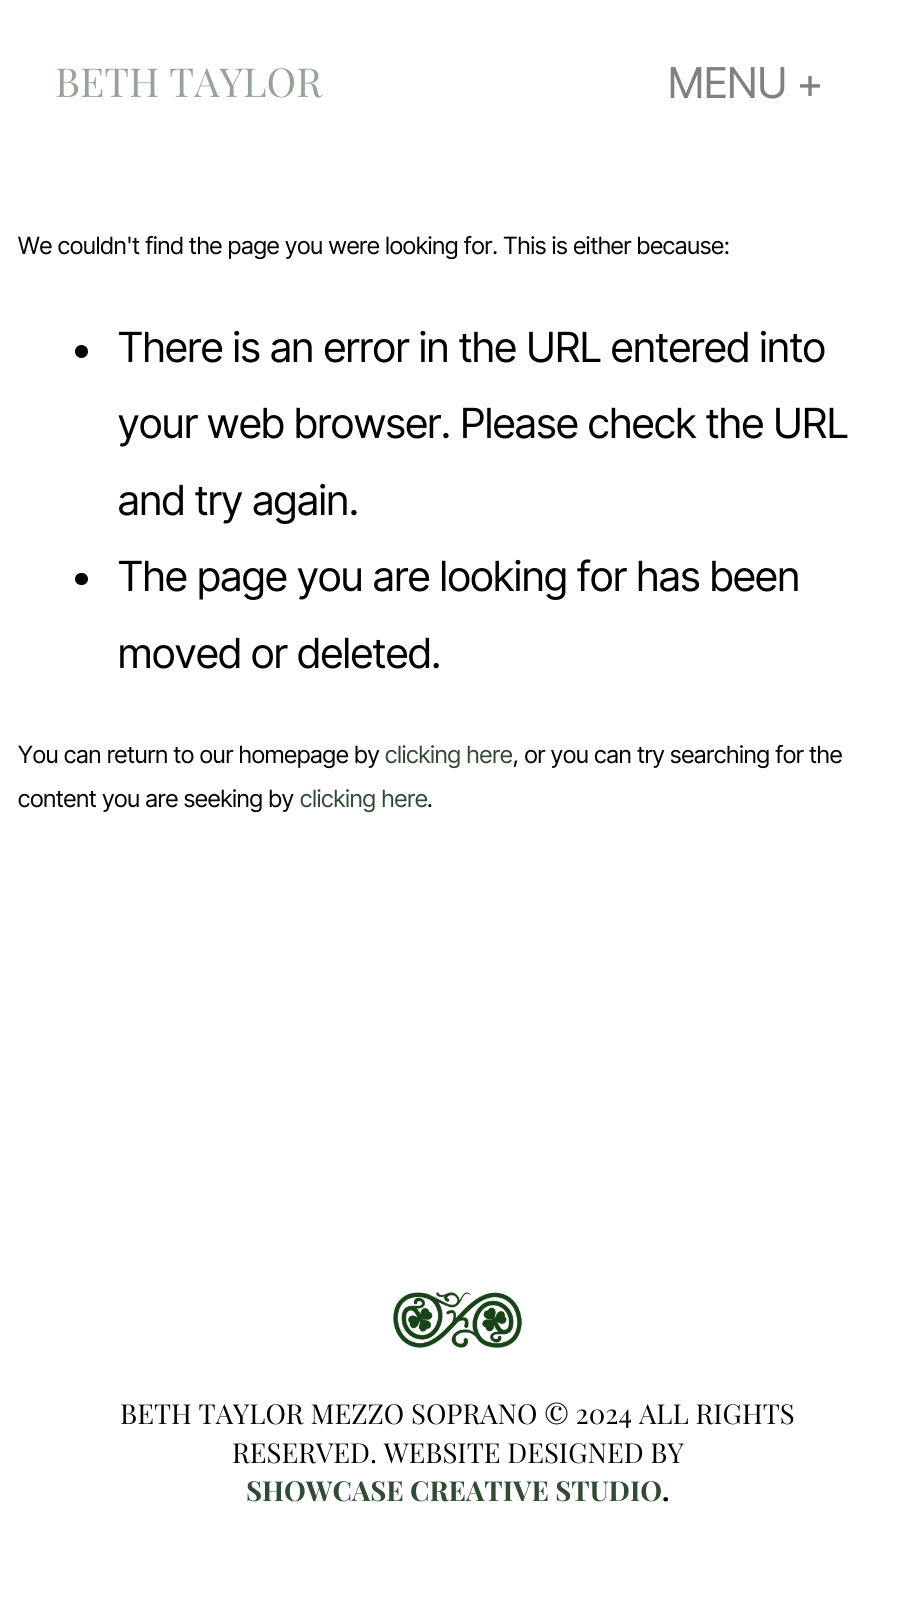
#include <cairo.h>
#include <math.h>
#include <stddef.h>

typedef struct { const char *family; double size; int italic, bold; unsigned color; } style_t;
static cairo_t *ctx;

static void ink(unsigned color) {
    cairo_set_source_rgb(ctx, (color >> 16) / 255.0, (color >> 8 & 255) / 255.0, (color & 255) / 255.0);
}

static void write(double x, double y, const char *s, const style_t *st) {
    cairo_select_font_face(ctx, st->family, st->italic ? CAIRO_FONT_SLANT_ITALIC : CAIRO_FONT_SLANT_NORMAL,
        st->bold ? CAIRO_FONT_WEIGHT_BOLD : CAIRO_FONT_WEIGHT_NORMAL);
    cairo_set_font_size(ctx, st->size);
    ink(st->color);
    cairo_move_to(ctx, x, y);
    cairo_show_text(ctx, s);
}

static void round_path(double x, double y, double w, double h, double r) {
    cairo_new_sub_path(ctx);
    cairo_arc(ctx, x + w - r, y + h - r, r, 0, M_PI / 2);
    cairo_arc(ctx, x + r, y + h - r, r, M_PI / 2, M_PI);
    cairo_arc(ctx, x + r, y + r, r, M_PI, 1.5 * M_PI);
    cairo_arc(ctx, x + w - r, y + r, r, 1.5 * M_PI, 2 * M_PI);
    cairo_close_path(ctx);
}

static void paste(const char *path, double x, double y, double w, double h) {
    cairo_surface_t *image = cairo_image_surface_create_from_png(path);
    cairo_save(ctx);
    cairo_set_source_surface(ctx, image, x, y);
    cairo_rectangle(ctx, x, y, w, h);
    cairo_fill(ctx);
    cairo_restore(ctx);
    cairo_surface_destroy(image);
}

static const style_t s1 = {"Playfair Display SC", 40, 0, 0, 0x96a397};
static const style_t s2 = {"Inter Tight", 42.5, 0, 0, 0x808080};
static const style_t s3 = {"Inter Tight", 23.75, 0, 0, 0x000000};
static const style_t s4 = {"Inter Tight", 41.5, 0, 0, 0x000000};
static const style_t s5 = {"Inter Tight", 23.75, 0, 0, 0x314a34};
static const style_t s6 = {"Playfair Display SC", 27.5, 0, 0, 0x000000};
static const style_t s7 = {"Playfair Display SC", 27.5, 0, 1, 0x314a34};
static const style_t s8 = {"Playfair Display SC", 27.5, 0, 1, 0x000000};

int main(void) {
    cairo_surface_t *surface = cairo_image_surface_create(CAIRO_FORMAT_RGB24, 914, 1613);
    ctx = cairo_create(surface);
    cairo_font_options_t *options = cairo_font_options_create();
    cairo_font_options_set_hint_metrics(options, CAIRO_HINT_METRICS_OFF);
    cairo_font_options_set_hint_style(options, CAIRO_HINT_STYLE_NONE);
    cairo_set_font_options(ctx, options);
    cairo_set_miter_limit(ctx, 4);
    ink(0xffffff);
    cairo_paint(ctx);
    write(55, 97, "BETH TAYLOR", &s1);
    write(668, 98, "MENU +", &s2);
    write(18, 254, "We couldn't find the page you were looking for. This is either because:", &s3);
    cairo_new_path(ctx);
    cairo_arc(ctx, 81.5, 351.5, 6.5, 0, 2 * M_PI);
    cairo_fill(ctx);
    write(118, 362, "There is an error in the URL entered into", &s4);
    write(118, 438, "your web browser. Please check the URL", &s4);
    write(118, 515, "and try again.", &s4);
    round_path(75, 573, 13, 12, 6);
    cairo_fill(ctx);
    write(118, 591, "The page you are looking for has been", &s4);
    write(118, 668, "moved or deleted.", &s4);
    write(18, 763, "You can return to our homepage by", &s3);
    write(385, 763, "clicking here", &s5);
    write(513, 763, ", or you can try searching for the", &s3);
    write(18, 807, "content you are seeking by", &s3);
    write(300, 807, "clicking here", &s5);
    write(427, 807, ".", &s3);
    paste("pic1.png", 393, 1292, 129, 56);
    write(120, 1424, "BETH TAYLOR MEZZO SOPRANO © 2024 ALL RIGHTS", &s6);
    write(232, 1463, "RESERVED. WEBSITE DESIGNED BY", &s6);
    write(246, 1501, "SHOWCASE CREATIVE STUDIO", &s7);
    write(662, 1501, ".", &s8);
    cairo_surface_write_to_png(surface, "screenshot.png");
    cairo_font_options_destroy(options);
    cairo_destroy(ctx);
    cairo_surface_destroy(surface);
    return 0;
}
